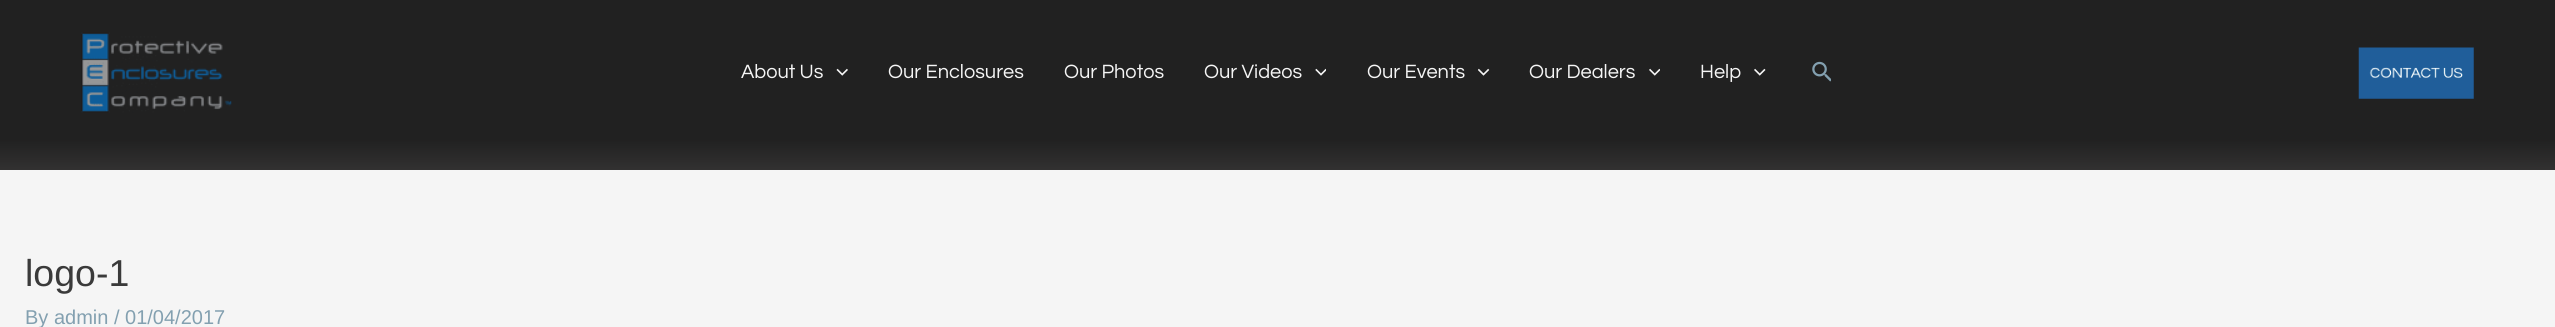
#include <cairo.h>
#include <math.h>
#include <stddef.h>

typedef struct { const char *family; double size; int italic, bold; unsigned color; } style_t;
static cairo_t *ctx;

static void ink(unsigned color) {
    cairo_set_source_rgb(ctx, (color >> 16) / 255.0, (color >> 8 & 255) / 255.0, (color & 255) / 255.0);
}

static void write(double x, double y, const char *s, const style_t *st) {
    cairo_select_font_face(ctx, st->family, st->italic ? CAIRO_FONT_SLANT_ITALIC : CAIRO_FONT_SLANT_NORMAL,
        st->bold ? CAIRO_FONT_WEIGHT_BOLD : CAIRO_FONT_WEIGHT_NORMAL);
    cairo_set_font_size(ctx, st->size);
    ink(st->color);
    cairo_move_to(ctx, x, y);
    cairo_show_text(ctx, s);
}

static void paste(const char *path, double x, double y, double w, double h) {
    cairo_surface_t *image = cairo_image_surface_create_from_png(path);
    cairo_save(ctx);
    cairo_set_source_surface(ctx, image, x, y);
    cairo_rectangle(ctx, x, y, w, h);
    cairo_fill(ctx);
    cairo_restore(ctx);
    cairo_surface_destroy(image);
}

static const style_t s1 = {"Questrial", 20, 0, 0, 0xf5f5f5};
static const style_t s2 = {"Liberation Sans", 37.5, 0, 0, 0x3a3a3a};
static const style_t s3 = {"Liberation Sans", 20, 0, 0, 0x83a0b0};

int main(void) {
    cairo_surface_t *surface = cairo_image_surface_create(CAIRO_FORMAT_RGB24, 2555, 327);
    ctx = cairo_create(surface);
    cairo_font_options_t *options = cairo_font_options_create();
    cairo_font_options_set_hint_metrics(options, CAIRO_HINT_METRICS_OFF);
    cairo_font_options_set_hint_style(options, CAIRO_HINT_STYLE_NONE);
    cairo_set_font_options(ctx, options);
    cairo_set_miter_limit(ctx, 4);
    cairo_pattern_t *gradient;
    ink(0xf5f5f5);
    cairo_paint(ctx);
    gradient = cairo_pattern_create_linear(1278, 0, 1278, 170);
    cairo_pattern_add_color_stop_rgba(gradient, 0.82, 0.129, 0.129, 0.129, 1);
    cairo_pattern_add_color_stop_rgba(gradient, 1, 0.196, 0.192, 0.192, 1);
    cairo_set_source(ctx, gradient);
    cairo_pattern_destroy(gradient);
    cairo_rectangle(ctx, 0, 0, 2555, 170);
    cairo_fill(ctx);
    paste("pic1.png", 81, 32, 151, 81);
    write(741, 78, "About Us", &s1);
    paste("pic2.png", 836, 68, 12, 8);
    write(888, 78, "Our Enclosures", &s1);
    write(1064, 78, "Our Photos", &s1);
    write(1204, 78, "Our Videos", &s1);
    paste("pic3.png", 1315, 68, 11, 8);
    write(1367, 78, "Our Events", &s1);
    paste("pic4.png", 1478, 68, 12, 8);
    write(1529, 78, "Our Dealers", &s1);
    paste("pic5.png", 1649, 68, 11, 8);
    write(1700, 78, "Help", &s1);
    paste("pic6.png", 1754, 68, 12, 8);
    paste("pic7.png", 1812, 61, 19, 21);
    paste("pic8.png", 2358, 47, 116, 52);
    write(25, 286, "logo-1", &s2);
    write(25, 324, "By admin / 01/04/2017", &s3);
    cairo_surface_write_to_png(surface, "screenshot.png");
    cairo_font_options_destroy(options);
    cairo_destroy(ctx);
    cairo_surface_destroy(surface);
    return 0;
}
